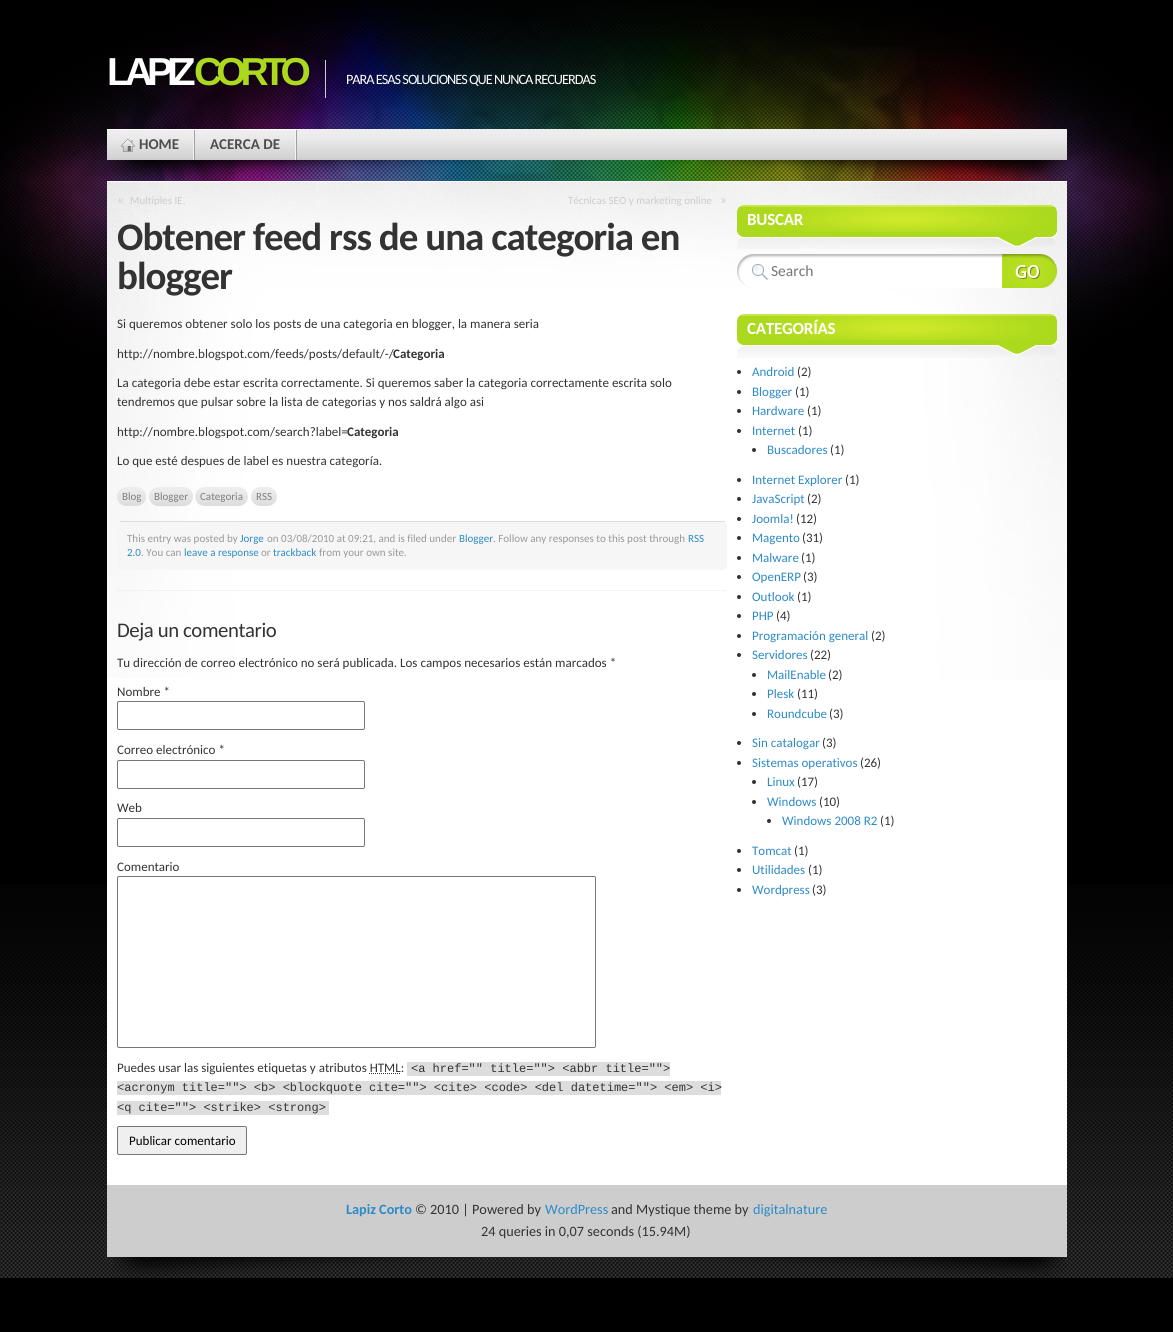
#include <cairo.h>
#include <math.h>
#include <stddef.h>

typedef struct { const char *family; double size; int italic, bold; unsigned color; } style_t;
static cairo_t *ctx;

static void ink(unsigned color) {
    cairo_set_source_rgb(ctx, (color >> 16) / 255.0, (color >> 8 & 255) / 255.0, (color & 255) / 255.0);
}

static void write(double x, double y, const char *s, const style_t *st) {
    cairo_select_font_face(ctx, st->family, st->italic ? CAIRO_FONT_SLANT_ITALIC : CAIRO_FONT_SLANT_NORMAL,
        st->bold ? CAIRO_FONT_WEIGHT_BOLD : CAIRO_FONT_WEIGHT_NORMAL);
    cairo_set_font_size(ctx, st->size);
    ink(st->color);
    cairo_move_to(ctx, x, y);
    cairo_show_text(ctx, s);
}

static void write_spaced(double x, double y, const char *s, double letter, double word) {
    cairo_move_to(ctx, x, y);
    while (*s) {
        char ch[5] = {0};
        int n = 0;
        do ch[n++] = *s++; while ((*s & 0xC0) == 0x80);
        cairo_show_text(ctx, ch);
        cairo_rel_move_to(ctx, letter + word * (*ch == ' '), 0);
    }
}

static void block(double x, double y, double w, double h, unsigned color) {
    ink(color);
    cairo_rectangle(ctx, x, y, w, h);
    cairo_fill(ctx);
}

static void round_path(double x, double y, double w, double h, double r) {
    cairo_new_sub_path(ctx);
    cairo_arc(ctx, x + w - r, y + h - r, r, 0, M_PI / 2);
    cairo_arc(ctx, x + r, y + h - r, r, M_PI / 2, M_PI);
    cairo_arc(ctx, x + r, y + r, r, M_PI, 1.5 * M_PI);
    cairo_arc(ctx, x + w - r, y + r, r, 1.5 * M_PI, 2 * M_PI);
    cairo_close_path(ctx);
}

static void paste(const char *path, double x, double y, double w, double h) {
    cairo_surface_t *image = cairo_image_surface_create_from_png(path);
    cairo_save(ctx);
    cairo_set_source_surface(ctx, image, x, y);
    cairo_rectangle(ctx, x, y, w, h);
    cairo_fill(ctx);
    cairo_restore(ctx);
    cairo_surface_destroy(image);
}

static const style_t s1 = {"Carlito", 15, 0, 1, 0x4e4e4e};
static const style_t s2 = {"Carlito", 13, 0, 0, 0xcccccc};
static const style_t s3 = {"Carlito", 11, 0, 0, 0xcccccc};
static const style_t s4 = {"Carlito", 13, 0, 0, 0x333333};
static const style_t s5 = {"Carlito", 13, 0, 1, 0x333333};
static const style_t s6 = {"Carlito", 11, 0, 0, 0x808080};
static const style_t s7 = {"Carlito", 11, 0, 0, 0x999999};
static const style_t s8 = {"Carlito", 11, 0, 0, 0x2d8ac7};
static const style_t s9 = {"Liberation Mono", 12, 0, 0, 0x333333};
static const style_t s10 = {"Carlito", 13, 0, 0, 0x000000};
static const style_t s11 = {"Carlito", 15.5, 0, 0, 0x757575};
static const style_t s12 = {"Carlito", 13, 0, 0, 0x2d8ac7};
static const style_t s13 = {"Carlito", 14.25, 0, 1, 0x2d8ac7};
static const style_t s14 = {"Carlito", 14.25, 0, 0, 0x333333};
static const style_t s15 = {"Carlito", 14.25, 0, 0, 0x2d8ac7};

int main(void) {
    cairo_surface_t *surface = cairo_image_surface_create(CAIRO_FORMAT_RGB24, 1173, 1332);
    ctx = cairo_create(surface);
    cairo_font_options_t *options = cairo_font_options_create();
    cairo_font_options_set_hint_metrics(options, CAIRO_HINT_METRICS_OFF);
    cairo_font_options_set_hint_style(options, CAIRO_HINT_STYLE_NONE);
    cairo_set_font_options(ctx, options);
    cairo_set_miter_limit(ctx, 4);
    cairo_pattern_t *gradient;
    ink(0x000000);
    cairo_paint(ctx);
    paste("pic1.png", 0, 0, 1173, 386);
    paste("pic2.png", 0, 884, 1173, 394);
    cairo_select_font_face(ctx, "Liberation Sans", CAIRO_FONT_SLANT_NORMAL, CAIRO_FONT_WEIGHT_BOLD);
    cairo_set_font_size(ctx, 39);
    ink(0xffffff);
    write_spaced(107, 85, "LAPIZ", -6, 0);
    ink(0xabd91d);
    write_spaced(194, 85, "CORTO", -6, 0);
    block(325, 60, 1, 38, 0xcccccc);
    cairo_select_font_face(ctx, "Carlito", CAIRO_FONT_SLANT_NORMAL, CAIRO_FONT_WEIGHT_NORMAL);
    cairo_set_font_size(ctx, 14.25);
    ink(0xffffff);
    write_spaced(346, 84, "PARA ESAS SOLUCIONES QUE NUNCA RECUERDAS", -1, 0);
    paste("pic3.png", 111, 160, 396, 21);
    paste("pic4.png", 667, 160, 400, 21);
    block(107, 158, 960, 2, 0xcecece);
    paste("pic5.png", 107, 129, 960, 29);
    paste("pic6.png", 193, 130, 2, 30);
    block(107, 129, 190, 1, 0xffffff);
    paste("pic7.png", 120, 139, 15, 13);
    write(139, 149, "HOME", &s1);
    paste("pic6.png", 295, 130, 2, 30);
    write(210, 149, "ACERCA DE", &s1);
    block(107, 181, 960, 1004, 0xffffff);
    paste("pic8.png", 107, 182, 960, 498);
    paste("pic9.png", 107, 182, 208, 496);
    write(117, 204, "«", &s2);
    write(130, 204, "Multiples IE.", &s3);
    write(568, 204, "Técnicas SEO y marketing online", &s3);
    write(720, 204, "»", &s2);
    cairo_new_path(ctx);
    cairo_move_to(ctx, 117, 590.5);
    cairo_line_to(ctx, 727, 590.5);
    ink(0xe8e8e8);
    cairo_set_line_width(ctx, 1);
    cairo_set_dash(ctx, (double[]){1, 1}, 2, 0);
    cairo_stroke(ctx);
    cairo_select_font_face(ctx, "Carlito", CAIRO_FONT_SLANT_NORMAL, CAIRO_FONT_WEIGHT_BOLD);
    cairo_set_font_size(ctx, 39);
    ink(0x333333);
    write_spaced(117, 250, "Obtener feed rss de una categoria en", -1, 0);
    write_spaced(117, 289, "blogger", -1, 0);
    write(117, 328, "Si queremos obtener solo los posts de una categoria en blogger, la manera seria", &s4);
    write(117, 358, "http://nombre.blogspot.com/feeds/posts/default/-/", &s4);
    write(393, 358, "Categoria", &s5);
    write(117, 387, "La categoria debe estar escrita correctamente. Si queremos saber la categoria correctamente escrita solo", &s4);
    write(117, 406, "tendremos que pulsar sobre la lista de categorias y nos saldrá algo asi", &s4);
    write(117, 436, "http://nombre.blogspot.com/search?label=", &s4);
    write(347, 436, "Categoria", &s5);
    write(117, 465, "Lo que esté despues de label es nuestra categoría.", &s4);
    gradient = cairo_pattern_create_linear(132, 487, 132, 506);
    cairo_pattern_add_color_stop_rgba(gradient, 0, 0.933, 0.933, 0.933, 1);
    cairo_pattern_add_color_stop_rgba(gradient, 1, 0.867, 0.867, 0.867, 1);
    cairo_set_source(ctx, gradient);
    cairo_pattern_destroy(gradient);
    round_path(117, 487, 29, 19, 9.5);
    cairo_fill(ctx);
    write(122, 500, "Blog", &s6);
    gradient = cairo_pattern_create_linear(171, 487, 171, 506);
    cairo_pattern_add_color_stop_rgba(gradient, 0, 0.933, 0.933, 0.933, 1);
    cairo_pattern_add_color_stop_rgba(gradient, 1, 0.867, 0.867, 0.867, 1);
    cairo_set_source(ctx, gradient);
    cairo_pattern_destroy(gradient);
    round_path(149, 487, 44, 19, 9.5);
    cairo_fill(ctx);
    ink(0xd8d8d8);
    cairo_new_path(ctx);
    cairo_move_to(ctx, 149, 496);
    cairo_curve_to(ctx, 149, 508, 163, 506, 171, 506);
    cairo_curve_to(ctx, 179, 506, 193, 508, 193, 496);
    cairo_curve_to(ctx, 193, 508, 178, 505, 171, 505);
    cairo_curve_to(ctx, 164, 505, 149, 508, 149, 496);
    cairo_close_path(ctx);
    cairo_fill(ctx);
    write(154, 500, "Blogger", &s6);
    gradient = cairo_pattern_create_linear(222, 487, 222, 506);
    cairo_pattern_add_color_stop_rgba(gradient, 0, 0.933, 0.933, 0.933, 1);
    cairo_pattern_add_color_stop_rgba(gradient, 1, 0.867, 0.867, 0.867, 1);
    cairo_set_source(ctx, gradient);
    cairo_pattern_destroy(gradient);
    round_path(195, 487, 53, 19, 9.5);
    cairo_fill(ctx);
    write(200, 500, "Categoria", &s6);
    gradient = cairo_pattern_create_linear(264, 487, 264, 506);
    cairo_pattern_add_color_stop_rgba(gradient, 0, 0.933, 0.933, 0.933, 1);
    cairo_pattern_add_color_stop_rgba(gradient, 1, 0.867, 0.867, 0.867, 1);
    cairo_set_source(ctx, gradient);
    cairo_pattern_destroy(gradient);
    round_path(251, 487, 26, 19, 9.5);
    cairo_fill(ctx);
    write(256, 500, "RSS", &s6);
    ink(0xf6f6f6);
    round_path(117, 521, 610, 49, 5);
    cairo_fill(ctx);
    block(120, 521, 605, 1, 0xdddddd);
    write(127, 542, "This entry was posted by", &s7);
    write(240, 542, "Jorge", &s8);
    write(267, 542, "on 03/08/2010 at 09:21, and is filed under", &s7);
    write(459, 542, "Blogger", &s8);
    write(493, 542, ". Follow any responses to this post through", &s7);
    write(688, 542, "RSS", &s8);
    write(127, 556, "2.0", &s8);
    write(141, 556, ". You can", &s7);
    write(184, 556, "leave a response", &s8);
    write(261, 556, "or", &s7);
    write(273, 556, "trackback", &s8);
    write(319, 556, "from your own site.", &s7);
    cairo_set_font_size(ctx, 20.75);
    ink(0x333333);
    write_spaced(117, 637, "Deja un comentario", -0.4, 0);
    write(117, 667, "Tu dirección de correo electrónico no será publicada. Los campos necesarios están marcados *", &s4);
    write(117, 696, "Nombre *", &s4);
    round_path(117.5, 701.5, 247, 28, 1.5);
    ink(0x767676);
    cairo_set_dash(ctx, NULL, 0, 0);
    cairo_stroke(ctx);
    write(117, 754, "Correo electrónico *", &s4);
    round_path(117.5, 760.5, 247, 28, 1.5);
    ink(0x767676);
    cairo_stroke(ctx);
    write(117, 812, "Web", &s4);
    round_path(117.5, 818.5, 247, 28, 1.5);
    ink(0x767676);
    cairo_stroke(ctx);
    write(117, 871, "Comentario", &s4);
    round_path(117.5, 876.5, 478, 171, 1.5);
    ink(0x767676);
    cairo_stroke(ctx);
    write(117, 1072, "Puedes usar las siguientes etiquetas y atributos HTML:", &s4);
    block(407, 1062, 263, 14, 0xdddddd);
    write(411, 1072, "<a href=\"\" title=\"\"> <abbr title=\"\">", &s9);
    cairo_new_path(ctx);
    cairo_move_to(ctx, 369, 1073.5);
    cairo_line_to(ctx, 400, 1073.5);
    cairo_set_dash(ctx, (double[]){1, 1}, 2, 0);
    cairo_stroke(ctx);
    block(117, 1081, 604, 14, 0xdddddd);
    write(117, 1091, "<acronym title=\"\"> <b> <blockquote cite=\"\"> <cite> <code> <del datetime=\"\"> <em> <i>", &s9);
    block(117, 1101, 212, 14, 0xdddddd);
    write(117, 1111, "<q cite=\"\"> <strike> <strong>", &s9);
    ink(0xefefef);
    round_path(117.5, 1126.5, 129, 28, 1.5);
    cairo_fill_preserve(ctx);
    ink(0x767676);
    cairo_set_dash(ctx, NULL, 0, 0);
    cairo_stroke(ctx);
    write(129, 1145, "Publicar comentario", &s10);
    paste("pic10.png", 737, 205, 320, 27);
    cairo_select_font_face(ctx, "Carlito", CAIRO_FONT_SLANT_NORMAL, CAIRO_FONT_WEIGHT_BOLD);
    cairo_set_font_size(ctx, 17);
    ink(0xffffff);
    write_spaced(747, 225, "BUSCAR", -0.25, 0);
    paste("pic11.png", 737, 232, 260, 17);
    paste("pic12.png", 997, 232, 60, 15);
    paste("pic13.png", 737, 254, 265, 34);
    write(771, 276, "Search", &s11);
    paste("pic14.png", 1002, 254, 55, 34);
    paste("pic15.png", 737, 314, 320, 26);
    cairo_select_font_face(ctx, "Carlito", CAIRO_FONT_SLANT_NORMAL, CAIRO_FONT_WEIGHT_BOLD);
    cairo_set_font_size(ctx, 17);
    ink(0xffffff);
    write_spaced(747, 334, "CATEGORÍAS", -0.25, 0);
    paste("pic16.png", 737, 340, 260, 18);
    paste("pic17.png", 997, 340, 60, 16);
    ink(0x333333);
    cairo_arc(ctx, 739, 372, 2, 0, 2 * M_PI);
    cairo_fill(ctx);
    write(752, 376, "Android", &s12);
    write(797, 376, "(2)", &s4);
    cairo_new_path(ctx);
    cairo_arc(ctx, 739, 392, 2, 0, 2 * M_PI);
    cairo_fill(ctx);
    write(752, 396, "Blogger", &s12);
    write(795, 396, "(1)", &s4);
    cairo_new_path(ctx);
    cairo_arc(ctx, 739, 411, 2, 0, 2 * M_PI);
    cairo_fill(ctx);
    write(752, 415, "Hardware", &s12);
    write(807, 415, "(1)", &s4);
    cairo_new_path(ctx);
    cairo_arc(ctx, 739, 431, 2, 0, 2 * M_PI);
    cairo_fill(ctx);
    write(752, 435, "Internet", &s12);
    write(798, 435, "(1)", &s4);
    cairo_new_path(ctx);
    cairo_arc(ctx, 754, 450, 2, 0, 2 * M_PI);
    cairo_fill(ctx);
    write(767, 454, "Buscadores", &s12);
    write(830, 454, "(1)", &s4);
    cairo_new_path(ctx);
    cairo_arc(ctx, 739, 480, 2, 0, 2 * M_PI);
    cairo_fill(ctx);
    write(752, 484, "Internet Explorer", &s12);
    write(845, 484, "(1)", &s4);
    cairo_new_path(ctx);
    cairo_arc(ctx, 739, 499, 2, 0, 2 * M_PI);
    cairo_fill(ctx);
    write(752, 503, "JavaScript", &s12);
    write(807, 503, "(2)", &s4);
    cairo_new_path(ctx);
    cairo_arc(ctx, 739, 519, 2, 0, 2 * M_PI);
    cairo_fill(ctx);
    write(752, 523, "Joomla!", &s12);
    write(796, 523, "(12)", &s4);
    cairo_new_path(ctx);
    cairo_arc(ctx, 739, 538, 2, 0, 2 * M_PI);
    cairo_fill(ctx);
    write(752, 542, "Magento", &s12);
    write(802, 542, "(31)", &s4);
    cairo_new_path(ctx);
    cairo_arc(ctx, 739, 558, 2, 0, 2 * M_PI);
    cairo_fill(ctx);
    write(752, 562, "Malware", &s12);
    write(801, 562, "(1)", &s4);
    cairo_new_path(ctx);
    cairo_arc(ctx, 739, 577, 2, 0, 2 * M_PI);
    cairo_fill(ctx);
    write(752, 581, "OpenERP", &s12);
    write(803, 581, "(3)", &s4);
    cairo_new_path(ctx);
    cairo_arc(ctx, 739, 597, 2, 0, 2 * M_PI);
    cairo_fill(ctx);
    write(752, 601, "Outlook", &s12);
    write(797, 601, "(1)", &s4);
    cairo_new_path(ctx);
    cairo_arc(ctx, 739, 616, 2, 0, 2 * M_PI);
    cairo_fill(ctx);
    write(752, 620, "PHP", &s12);
    write(776, 620, "(4)", &s4);
    cairo_new_path(ctx);
    cairo_arc(ctx, 739, 636, 2, 0, 2 * M_PI);
    cairo_fill(ctx);
    write(752, 640, "Programación general", &s12);
    write(871, 640, "(2)", &s4);
    cairo_new_path(ctx);
    cairo_arc(ctx, 739, 655, 2, 0, 2 * M_PI);
    cairo_fill(ctx);
    write(752, 659, "Servidores", &s12);
    write(810, 659, "(22)", &s4);
    cairo_new_path(ctx);
    cairo_arc(ctx, 754, 675, 2, 0, 2 * M_PI);
    cairo_fill(ctx);
    write(767, 679, "MailEnable", &s12);
    write(828, 679, "(2)", &s4);
    cairo_new_path(ctx);
    cairo_arc(ctx, 754, 694, 2, 0, 2 * M_PI);
    cairo_fill(ctx);
    write(767, 698, "Plesk", &s12);
    write(797, 698, "(11)", &s4);
    cairo_new_path(ctx);
    cairo_arc(ctx, 754, 714, 2, 0, 2 * M_PI);
    cairo_fill(ctx);
    write(767, 718, "Roundcube", &s12);
    write(829, 718, "(3)", &s4);
    cairo_new_path(ctx);
    cairo_arc(ctx, 739, 743, 2, 0, 2 * M_PI);
    cairo_fill(ctx);
    write(752, 747, "Sin catalogar", &s12);
    write(822, 747, "(3)", &s4);
    cairo_new_path(ctx);
    cairo_arc(ctx, 739, 763, 2, 0, 2 * M_PI);
    cairo_fill(ctx);
    write(752, 767, "Sistemas operativos", &s12);
    write(860, 767, "(26)", &s4);
    cairo_new_path(ctx);
    cairo_arc(ctx, 754, 782, 2, 0, 2 * M_PI);
    cairo_fill(ctx);
    write(767, 786, "Linux", &s12);
    write(797, 786, "(17)", &s4);
    cairo_new_path(ctx);
    cairo_arc(ctx, 754, 802, 2, 0, 2 * M_PI);
    cairo_fill(ctx);
    write(767, 806, "Windows", &s12);
    write(819, 806, "(10)", &s4);
    cairo_new_path(ctx);
    cairo_arc(ctx, 769, 821, 2, 0, 2 * M_PI);
    cairo_fill(ctx);
    write(782, 825, "Windows 2008 R2", &s12);
    write(880, 825, "(1)", &s4);
    cairo_new_path(ctx);
    cairo_arc(ctx, 739, 851, 2, 0, 2 * M_PI);
    cairo_fill(ctx);
    write(752, 855, "Tomcat", &s12);
    write(794, 855, "(1)", &s4);
    cairo_new_path(ctx);
    cairo_arc(ctx, 739, 870, 2, 0, 2 * M_PI);
    cairo_fill(ctx);
    write(752, 874, "Utilidades", &s12);
    write(808, 874, "(1)", &s4);
    cairo_new_path(ctx);
    cairo_arc(ctx, 739, 890, 2, 0, 2 * M_PI);
    cairo_fill(ctx);
    write(752, 894, "Wordpress", &s12);
    write(812, 894, "(3)", &s4);
    paste("pic18.png", 113, 1257, 361, 21);
    paste("pic19.png", 677, 1257, 389, 21);
    block(107, 1185, 960, 72, 0xcdcdcd);
    write(346, 1214, "Lapiz Corto", &s13);
    write(415, 1214, "© 2010 | Powered by", &s14);
    write(545, 1214, "WordPress", &s15);
    write(611, 1214, "and Mystique theme by", &s14);
    write(753, 1214, "digitalnature", &s15);
    write(481, 1236, "24 queries in 0,07 seconds (15.94M)", &s14);
    cairo_surface_write_to_png(surface, "screenshot.png");
    cairo_font_options_destroy(options);
    cairo_destroy(ctx);
    cairo_surface_destroy(surface);
    return 0;
}
